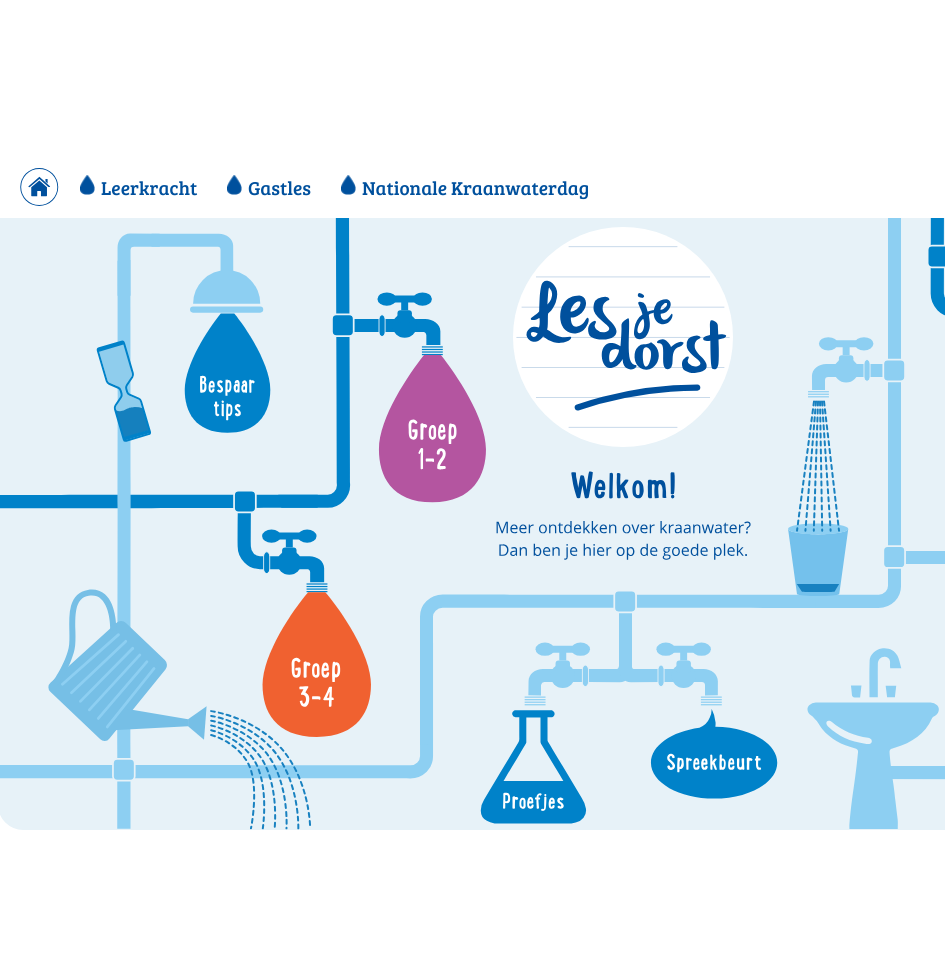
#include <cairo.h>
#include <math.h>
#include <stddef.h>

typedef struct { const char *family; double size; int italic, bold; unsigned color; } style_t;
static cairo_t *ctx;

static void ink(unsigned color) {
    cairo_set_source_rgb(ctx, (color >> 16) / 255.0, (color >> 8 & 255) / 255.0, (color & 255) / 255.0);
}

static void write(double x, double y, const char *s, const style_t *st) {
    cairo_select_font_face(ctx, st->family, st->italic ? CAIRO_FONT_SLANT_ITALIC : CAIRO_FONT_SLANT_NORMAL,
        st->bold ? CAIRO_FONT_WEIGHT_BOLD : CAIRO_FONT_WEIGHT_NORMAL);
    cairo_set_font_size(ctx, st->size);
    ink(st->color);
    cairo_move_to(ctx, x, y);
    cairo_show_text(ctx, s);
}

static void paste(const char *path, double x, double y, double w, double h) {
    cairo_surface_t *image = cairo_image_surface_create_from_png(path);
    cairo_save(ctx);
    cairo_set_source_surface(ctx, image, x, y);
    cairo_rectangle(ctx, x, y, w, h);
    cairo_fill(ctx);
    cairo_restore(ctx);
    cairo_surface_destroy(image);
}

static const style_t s1 = {"Bree Serif", 19.25, 0, 0, 0x00509d};

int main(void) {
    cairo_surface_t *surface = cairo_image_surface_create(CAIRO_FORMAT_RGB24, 945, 979);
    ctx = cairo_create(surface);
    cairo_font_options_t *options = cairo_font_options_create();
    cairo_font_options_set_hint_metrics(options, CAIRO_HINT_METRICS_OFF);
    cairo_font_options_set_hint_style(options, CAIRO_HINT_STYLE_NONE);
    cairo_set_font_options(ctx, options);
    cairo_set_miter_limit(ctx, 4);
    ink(0xffffff);
    cairo_paint(ctx);
    paste("pic1.png", 0, 168, 945, 662);
    paste("pic2.png", 80, 175, 15, 20);
    write(101, 195, "Leerkracht", &s1);
    paste("pic3.png", 227, 175, 15, 20);
    write(248, 195, "Gastles", &s1);
    paste("pic2.png", 341, 175, 15, 20);
    write(362, 195, "Nationale Kraanwaterdag", &s1);
    cairo_surface_write_to_png(surface, "screenshot.png");
    cairo_font_options_destroy(options);
    cairo_destroy(ctx);
    cairo_surface_destroy(surface);
    return 0;
}
